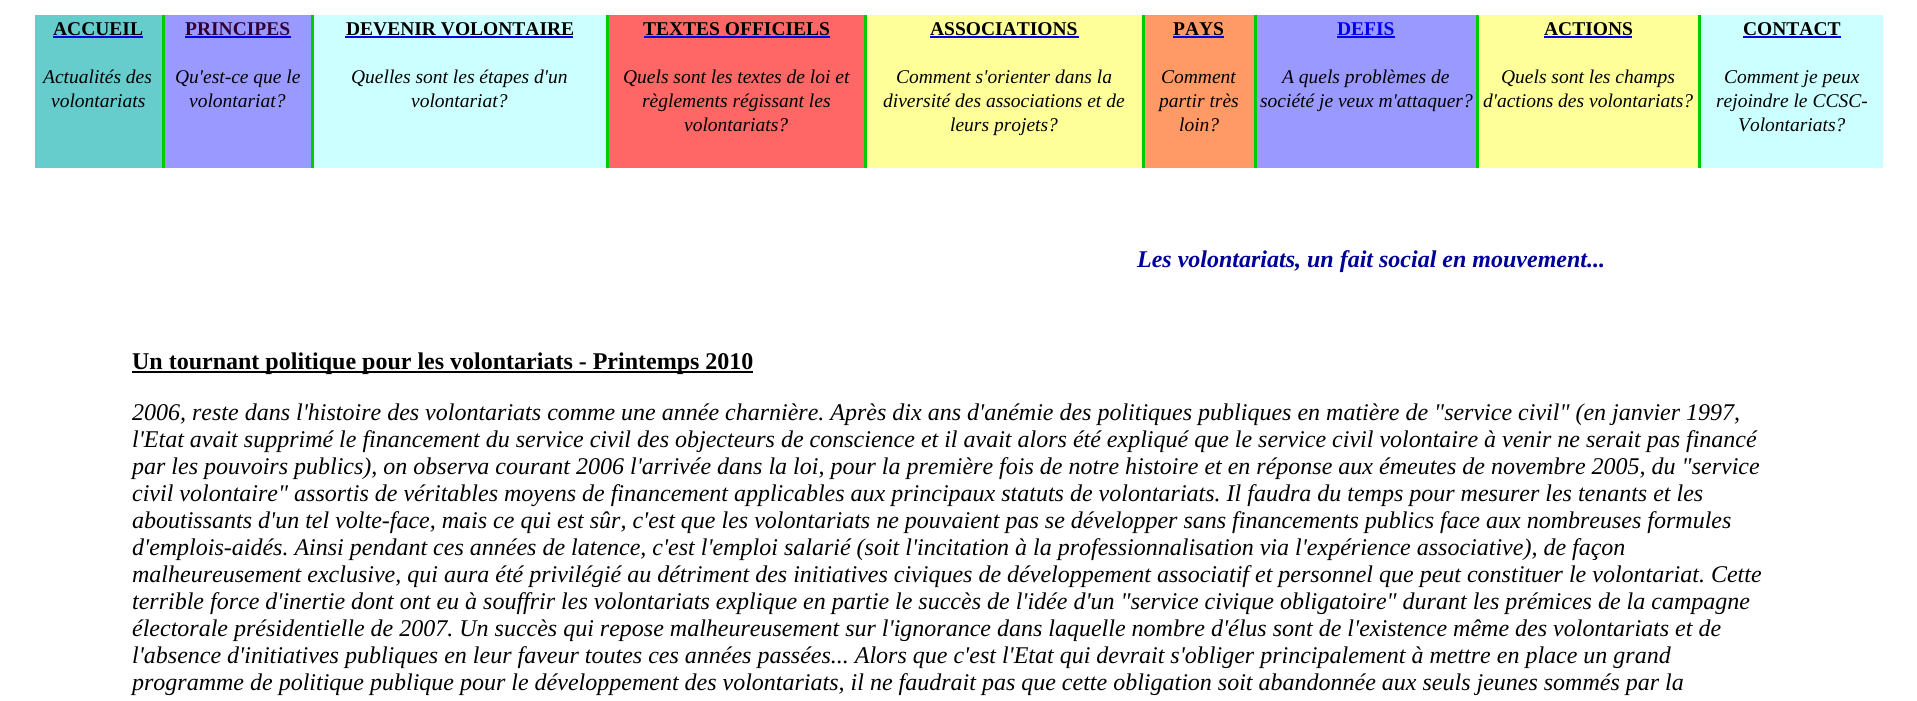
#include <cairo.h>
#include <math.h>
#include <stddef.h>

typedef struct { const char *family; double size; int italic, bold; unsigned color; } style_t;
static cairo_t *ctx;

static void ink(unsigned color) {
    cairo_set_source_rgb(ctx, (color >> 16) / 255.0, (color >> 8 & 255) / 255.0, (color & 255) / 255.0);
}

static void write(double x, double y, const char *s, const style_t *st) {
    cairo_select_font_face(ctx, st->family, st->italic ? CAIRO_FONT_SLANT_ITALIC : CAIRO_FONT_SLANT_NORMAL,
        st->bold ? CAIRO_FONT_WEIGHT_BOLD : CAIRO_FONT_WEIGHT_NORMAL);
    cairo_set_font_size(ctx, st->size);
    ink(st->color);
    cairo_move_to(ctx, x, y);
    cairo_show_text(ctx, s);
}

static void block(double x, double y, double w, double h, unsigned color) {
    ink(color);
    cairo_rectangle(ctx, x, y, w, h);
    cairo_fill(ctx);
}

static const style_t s1 = {"Liberation Serif", 19.5, 0, 1, 0x000000};
static const style_t s2 = {"Liberation Serif", 19.5, 1, 0, 0x000000};
static const style_t s3 = {"Liberation Serif", 19.5, 0, 1, 0x330033};
static const style_t s4 = {"Liberation Serif", 19.5, 0, 1, 0x0000ee};
static const style_t s5 = {"Liberation Serif", 24, 1, 1, 0x000099};
static const style_t s6 = {"Liberation Serif", 24, 0, 1, 0x000000};
static const style_t s7 = {"Liberation Serif", 24, 1, 0, 0x000000};

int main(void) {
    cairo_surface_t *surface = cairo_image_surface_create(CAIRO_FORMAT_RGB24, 1917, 701);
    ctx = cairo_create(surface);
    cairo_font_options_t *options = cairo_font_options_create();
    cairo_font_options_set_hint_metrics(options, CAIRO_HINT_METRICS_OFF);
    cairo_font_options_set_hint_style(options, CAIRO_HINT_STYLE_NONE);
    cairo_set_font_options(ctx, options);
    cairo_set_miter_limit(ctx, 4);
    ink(0xffffff);
    cairo_paint(ctx);
    block(162, 15, 1539, 153, 0x00cc00);
    block(35, 15, 127, 153, 0x66cccc);
    write(53, 35, "ACCUEIL", &s1);
    block(53, 36, 90, 2, 0x0000ee);
    write(43, 83, "Actualités des", &s2);
    write(51, 107, "volontariats", &s2);
    block(165, 15, 146, 153, 0x9999ff);
    write(185, 35, "PRINCIPES", &s3);
    block(185, 36, 106, 2, 0x0000ee);
    write(175, 83, "Qu'est-ce que le", &s2);
    write(189, 107, "volontariat?", &s2);
    block(314, 15, 292, 153, 0xccffff);
    write(346, 35, "DEVENIR VOLONTAIRE", &s1);
    block(345, 36, 228, 2, 0x0000ee);
    write(351, 83, "Quelles sont les étapes d'un", &s2);
    write(411, 107, "volontariat?", &s2);
    block(609, 15, 255, 153, 0xff6666);
    write(643, 35, "TEXTES OFFICIELS", &s1);
    block(644, 36, 186, 2, 0x0000ee);
    write(623, 83, "Quels sont les textes de loi et", &s2);
    write(642, 107, "règlements régissant les", &s2);
    write(684, 131, "volontariats?", &s2);
    block(867, 15, 275, 153, 0xffff99);
    write(930, 35, "ASSOCIATIONS", &s1);
    block(930, 36, 149, 2, 0x0000ee);
    write(896, 83, "Comment s'orienter dans la", &s2);
    write(883, 107, "diversité des associations et de", &s2);
    write(950, 131, "leurs projets?", &s2);
    block(1145, 15, 109, 153, 0xff9966);
    write(1173, 35, "PAYS", &s1);
    block(1173, 36, 51, 2, 0x0000ee);
    write(1161, 83, "Comment", &s2);
    write(1159, 107, "partir très", &s2);
    write(1179, 131, "loin?", &s2);
    block(1257, 15, 219, 153, 0x9999ff);
    write(1337, 35, "DEFIS", &s4);
    block(1337, 36, 58, 2, 0x0000ee);
    write(1282, 83, "A quels problèmes de", &s2);
    write(1260, 107, "société je veux m'attaquer?", &s2);
    block(1479, 15, 219, 153, 0xffff99);
    write(1544, 35, "ACTIONS", &s1);
    block(1544, 36, 88, 2, 0x0000ee);
    write(1501, 83, "Quels sont les champs", &s2);
    write(1483, 107, "d'actions des volontariats?", &s2);
    block(1701, 15, 182, 153, 0xccffff);
    write(1743, 35, "CONTACT", &s1);
    block(1743, 36, 98, 2, 0x0000ee);
    write(1724, 83, "Comment je peux", &s2);
    write(1716, 107, "rejoindre le CCSC-", &s2);
    write(1738, 131, "Volontariats?", &s2);
    write(1137, 267, "Les volontariats, un fait social en mouvement...", &s5);
    block(132, 371, 621, 2, 0x000000);
    write(132, 369, "Un tournant politique pour les volontariats - Printemps 2010", &s6);
    write(132, 420, "2006, reste dans l'histoire des volontariats comme une année charnière. Après dix ans d'anémie des politiques publiques en matière de \"service civil\" (en janvier 1997,", &s7);
    write(132, 447, "l'Etat avait supprimé le financement du service civil des objecteurs de conscience et il avait alors été expliqué que le service civil volontaire à venir ne serait pas financé", &s7);
    write(132, 474, "par les pouvoirs publics), on observa courant 2006 l'arrivée dans la loi, pour la première fois de notre histoire et en réponse aux émeutes de novembre 2005, du \"service", &s7);
    write(132, 501, "civil volontaire\" assortis de véritables moyens de financement applicables aux principaux statuts de volontariats. Il faudra du temps pour mesurer les tenants et les", &s7);
    write(132, 528, "aboutissants d'un tel volte-face, mais ce qui est sûr, c'est que les volontariats ne pouvaient pas se développer sans financements publics face aux nombreuses formules", &s7);
    write(132, 555, "d'emplois-aidés. Ainsi pendant ces années de latence, c'est l'emploi salarié (soit l'incitation à la professionnalisation via l'expérience associative), de façon", &s7);
    write(132, 582, "malheureusement exclusive, qui aura été privilégié au détriment des initiatives civiques de développement associatif et personnel que peut constituer le volontariat. Cette", &s7);
    write(132, 609, "terrible force d'inertie dont ont eu à souffrir les volontariats explique en partie le succès de l'idée d'un \"service civique obligatoire\" durant les prémices de la campagne", &s7);
    write(132, 636, "électorale présidentielle de 2007. Un succès qui repose malheureusement sur l'ignorance dans laquelle nombre d'élus sont de l'existence même des volontariats et de", &s7);
    write(132, 663, "l'absence d'initiatives publiques en leur faveur toutes ces années passées... Alors que c'est l'Etat qui devrait s'obliger principalement à mettre en place un grand", &s7);
    write(132, 690, "programme de politique publique pour le développement des volontariats, il ne faudrait pas que cette obligation soit abandonnée aux seuls jeunes sommés par la", &s7);
    cairo_surface_write_to_png(surface, "screenshot.png");
    cairo_font_options_destroy(options);
    cairo_destroy(ctx);
    cairo_surface_destroy(surface);
    return 0;
}
